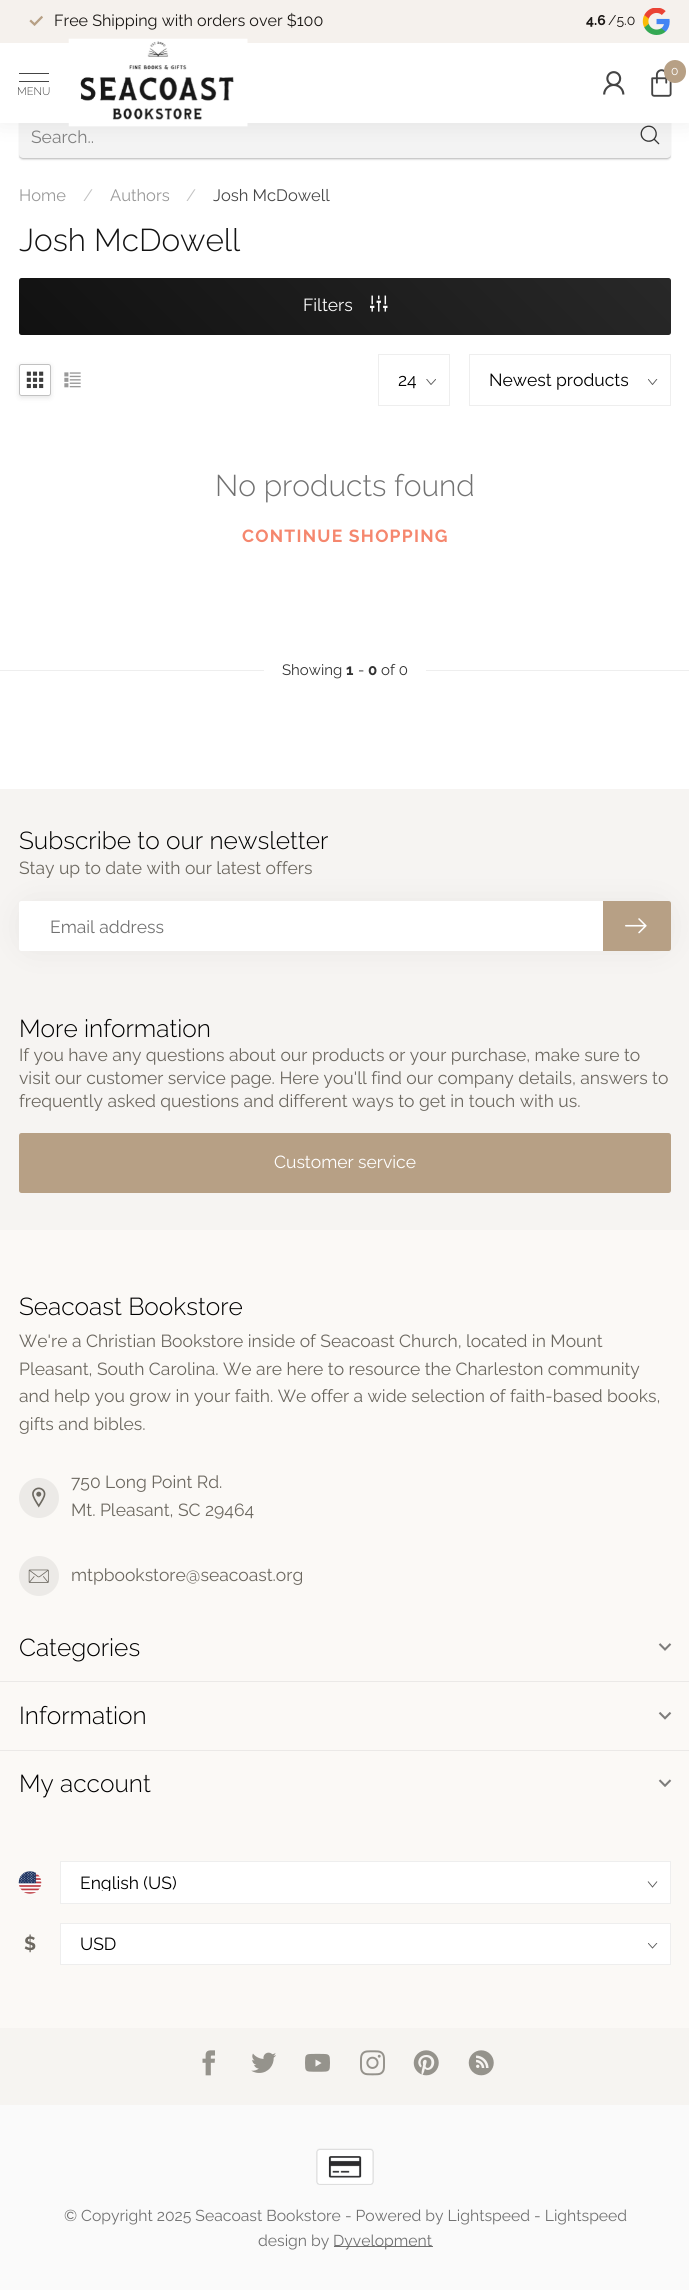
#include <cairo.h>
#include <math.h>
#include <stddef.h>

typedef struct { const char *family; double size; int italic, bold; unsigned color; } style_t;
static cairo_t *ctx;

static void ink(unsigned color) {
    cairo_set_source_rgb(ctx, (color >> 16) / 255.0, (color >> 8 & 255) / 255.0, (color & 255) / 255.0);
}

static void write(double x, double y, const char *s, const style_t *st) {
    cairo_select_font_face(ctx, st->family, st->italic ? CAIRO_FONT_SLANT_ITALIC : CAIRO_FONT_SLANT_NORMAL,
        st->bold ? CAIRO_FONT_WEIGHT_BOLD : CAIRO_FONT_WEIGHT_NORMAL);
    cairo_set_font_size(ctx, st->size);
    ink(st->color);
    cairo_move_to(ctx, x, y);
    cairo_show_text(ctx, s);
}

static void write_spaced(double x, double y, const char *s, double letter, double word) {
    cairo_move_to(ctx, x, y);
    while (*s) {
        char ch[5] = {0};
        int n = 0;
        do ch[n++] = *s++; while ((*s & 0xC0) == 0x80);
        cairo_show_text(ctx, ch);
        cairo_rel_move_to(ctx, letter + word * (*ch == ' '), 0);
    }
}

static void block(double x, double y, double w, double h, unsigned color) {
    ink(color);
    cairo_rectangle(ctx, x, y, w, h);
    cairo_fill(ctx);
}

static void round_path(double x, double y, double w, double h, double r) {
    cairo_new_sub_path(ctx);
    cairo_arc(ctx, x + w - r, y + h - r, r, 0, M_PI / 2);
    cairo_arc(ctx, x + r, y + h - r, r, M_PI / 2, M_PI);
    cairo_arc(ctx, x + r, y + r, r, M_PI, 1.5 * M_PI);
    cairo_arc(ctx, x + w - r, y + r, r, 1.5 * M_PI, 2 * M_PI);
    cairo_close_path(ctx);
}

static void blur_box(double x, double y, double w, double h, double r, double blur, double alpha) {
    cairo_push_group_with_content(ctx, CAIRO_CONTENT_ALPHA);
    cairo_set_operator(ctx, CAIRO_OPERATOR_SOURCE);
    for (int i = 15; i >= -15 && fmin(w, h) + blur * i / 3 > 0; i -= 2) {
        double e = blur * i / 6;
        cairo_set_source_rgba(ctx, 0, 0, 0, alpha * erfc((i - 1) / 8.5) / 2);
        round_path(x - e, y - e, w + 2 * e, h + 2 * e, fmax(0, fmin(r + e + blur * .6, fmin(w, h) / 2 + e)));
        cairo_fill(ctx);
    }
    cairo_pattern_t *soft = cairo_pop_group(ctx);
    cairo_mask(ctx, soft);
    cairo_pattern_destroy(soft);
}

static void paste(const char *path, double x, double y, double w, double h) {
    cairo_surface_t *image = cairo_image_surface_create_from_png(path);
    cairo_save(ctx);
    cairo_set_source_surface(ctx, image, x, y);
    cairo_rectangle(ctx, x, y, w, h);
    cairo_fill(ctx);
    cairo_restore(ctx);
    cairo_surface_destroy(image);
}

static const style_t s1 = {"Raleway", 16.1, 0, 0, 0x1b1815};
static const style_t s2 = {"Raleway", 14, 0, 1, 0x1b1815};
static const style_t s3 = {"Raleway", 14, 0, 0, 0x1b1815};
static const style_t s4 = {"Raleway", 12, 0, 0, 0xffffff};
static const style_t s5 = {"Raleway Light", 11, 0, 0, 0x474747};
static const style_t s6 = {"Raleway", 17.5, 0, 0, 0x808080};
static const style_t s7 = {"Raleway", 16.5, 0, 0, 0x999999};
static const style_t s8 = {"Raleway", 16.5, 0, 0, 0xc2c2c2};
static const style_t s9 = {"Raleway", 16.5, 0, 0, 0x474747};
static const style_t s10 = {"Raleway Light", 31.5, 0, 0, 0x131313};
static const style_t s11 = {"Raleway", 17.5, 0, 0, 0xffffff};
static const style_t s12 = {"Raleway", 17.5, 0, 0, 0x000000};
static const style_t s13 = {"Raleway Light", 30, 0, 0, 0x717171};
static const style_t s14 = {"Raleway", 15, 0, 0, 0x333333};
static const style_t s15 = {"Raleway", 15, 0, 1, 0x333333};
static const style_t s16 = {"Raleway Light", 24.5, 0, 0, 0x000000};
static const style_t s17 = {"Raleway", 17.5, 0, 0, 0x6c6860};
static const style_t s18 = {"Raleway", 17.5, 0, 0, 0x717171};
static const style_t s19 = {"Raleway", 19, 0, 1, 0x6c6860};
static const style_t s20 = {"Raleway", 15.75, 0, 0, 0x717171};

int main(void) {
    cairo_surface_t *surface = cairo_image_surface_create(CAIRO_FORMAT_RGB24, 689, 2290);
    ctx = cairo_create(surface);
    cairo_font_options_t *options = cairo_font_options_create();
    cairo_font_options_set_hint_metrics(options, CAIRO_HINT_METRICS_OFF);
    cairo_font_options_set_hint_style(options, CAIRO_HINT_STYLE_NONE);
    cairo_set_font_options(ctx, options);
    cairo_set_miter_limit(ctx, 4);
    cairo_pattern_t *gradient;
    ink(0xffffff);
    cairo_paint(ctx);
    ink(0x9b9b9b);
    blur_box(20, 119, 650, 40, 2.5, 1, 0.75);
    ink(0xffffff);
    round_path(19, 115, 652, 43, 4);
    cairo_fill(ctx);
    cairo_set_source_rgba(ctx, 0.067, 0.067, 0.067, 0.05);
    cairo_rectangle(ctx, 19, 123, 652, 35);
    cairo_fill(ctx);
    paste("pic6.png", 640, 125, 20, 20);
    ink(0x000000);
    blur_box(0, 0, 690, 123, 0, 12.5, 0.07);
    block(0, 43, 689, 80, 0xffffff);
    block(0, 0, 689, 43, 0xf5f1ed);
    paste("pic1.png", 29, 15, 14, 11);
    write(54, 26, "Free Shipping with orders over $100", &s1);
    write(586, 25, "4.6", &s2);
    write(608, 25, "/5.0", &s3);
    paste("pic2.png", 642, 8, 28, 27);
    paste("pic3.png", 68, 38, 180, 89);
    paste("pic4.png", 603, 71, 22, 24);
    paste("pic5.png", 651, 69, 21, 28);
    ink(0xb7a085);
    round_path(664, 60, 22, 23, 11);
    cairo_fill(ctx);
    write(671, 75, "0", &s4);
    block(19, 73, 30, 1, 0x444444);
    block(19, 81, 30, 1, 0x444444);
    write(17, 95, "MENU", &s5);
    write(31, 143, "Search..", &s6);
    write(19, 201, "Home", &s7);
    write(83, 201, "/", &s8);
    write(110, 201, "Authors", &s7);
    write(186, 201, "/", &s8);
    write(213, 201, "Josh McDowell", &s9);
    write(19, 251, "Josh McDowell", &s10);
    gradient = cairo_pattern_create_linear(168, 484, 523, 129);
    cairo_pattern_add_color_stop_rgba(gradient, 0, 0.067, 0.067, 0.067, 1);
    cairo_pattern_add_color_stop_rgba(gradient, 1, 0.157, 0.157, 0.157, 1);
    cairo_set_source(ctx, gradient);
    cairo_pattern_destroy(gradient);
    round_path(19, 278, 652, 57, 2.5);
    cairo_fill(ctx);
    write(303, 311, "Filters", &s11);
    paste("pic7.png", 370, 295, 18, 17);
    cairo_save(ctx);
    cairo_set_fill_rule(ctx, CAIRO_FILL_RULE_EVEN_ODD);
    cairo_new_path(ctx);
    cairo_move_to(ctx, 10, 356);
    cairo_line_to(ctx, 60, 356);
    cairo_line_to(ctx, 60, 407);
    cairo_line_to(ctx, 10, 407);
    cairo_close_path(ctx);
    cairo_move_to(ctx, 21.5, 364);
    cairo_line_to(ctx, 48.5, 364);
    cairo_curve_to(ctx, 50, 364, 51, 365, 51, 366.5);
    cairo_line_to(ctx, 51, 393.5);
    cairo_curve_to(ctx, 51, 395, 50, 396, 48.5, 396);
    cairo_line_to(ctx, 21.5, 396);
    cairo_curve_to(ctx, 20, 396, 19, 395, 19, 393.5);
    cairo_line_to(ctx, 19, 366.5);
    cairo_curve_to(ctx, 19, 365, 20, 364, 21.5, 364);
    cairo_close_path(ctx);
    cairo_clip(ctx);
    ink(0x000000);
    blur_box(19, 365, 32, 33, 2.5, 2.5, 0.1);
    cairo_restore(ctx);
    round_path(19.5, 364.5, 31, 31, 2);
    ink(0xc1c1c1);
    cairo_set_line_width(ctx, 1);
    cairo_stroke(ctx);
    paste("pic8.png", 26, 371, 18, 18);
    paste("pic9.png", 64, 372, 17, 16);
    cairo_save(ctx);
    cairo_rectangle(ctx, 426, 379, 10, 6);
    cairo_clip(ctx);
    cairo_new_path(ctx);
    cairo_move_to(ctx, 436, 379);
    cairo_line_to(ctx, 431, 384.5);
    cairo_line_to(ctx, 426.5, 379);
    ink(0x595959);
    cairo_set_line_width(ctx, 0.9);
    cairo_stroke(ctx);
    cairo_restore(ctx);
    cairo_rectangle(ctx, 378.5, 354.5, 71, 51);
    ink(0xeeeeee);
    cairo_stroke(ctx);
    write(398, 386, "24", &s12);
    cairo_save(ctx);
    cairo_rectangle(ctx, 648, 379, 10, 6);
    cairo_clip(ctx);
    cairo_new_path(ctx);
    cairo_move_to(ctx, 657, 379);
    cairo_line_to(ctx, 652.5, 384.5);
    cairo_line_to(ctx, 648, 379);
    ink(0x595959);
    cairo_set_line_width(ctx, 0.9);
    cairo_stroke(ctx);
    cairo_restore(ctx);
    cairo_rectangle(ctx, 469.5, 354.5, 201, 51);
    ink(0xeeeeee);
    cairo_stroke(ctx);
    write(489, 386, "Newest products", &s12);
    write(215, 496, "No products found", &s13);
    cairo_select_font_face(ctx, "Raleway", CAIRO_FONT_SLANT_NORMAL, CAIRO_FONT_WEIGHT_BOLD);
    cairo_set_font_size(ctx, 17.5);
    ink(0xf5876e);
    write_spaced(242, 542, "CONTINUE SHOPPING", 1.25, 0);
    block(0, 670, 689, 1, 0xeeeeee);
    block(264, 670, 162, 1, 0xffffff);
    write(282, 675, "Showing", &s14);
    write(346, 675, "1", &s15);
    write(368, 675, "0", &s15);
    write(381, 675, "of 0", &s14);
    write(358, 675, "-", &s14);
    block(0, 1230, 689, 798, 0xfbf9f6);
    block(0, 789, 689, 441, 0xf6f4f2);
    write(19, 849, "Subscribe to our newsletter", &s16);
    ink(0x000000);
    blur_box(31, 914, 628, 25, 0, 19, 0.1);
    write(19, 874, "Stay up to date with our latest offers", &s17);
    ink(0xffffff);
    cairo_new_path(ctx);
    cairo_move_to(ctx, 21.5, 901);
    cairo_line_to(ctx, 603, 901);
    cairo_line_to(ctx, 603, 951);
    cairo_line_to(ctx, 21.5, 951);
    cairo_curve_to(ctx, 20, 951, 19, 950, 19, 948.5);
    cairo_line_to(ctx, 19, 903.5);
    cairo_curve_to(ctx, 19, 902, 20, 901, 21.5, 901);
    cairo_close_path(ctx);
    cairo_fill(ctx);
    write(50, 933, "Email address", &s18);
    ink(0xb7a085);
    cairo_new_path(ctx);
    cairo_move_to(ctx, 603, 901);
    cairo_line_to(ctx, 668.5, 901);
    cairo_curve_to(ctx, 670, 901, 671, 902, 671, 903.5);
    cairo_line_to(ctx, 671, 948.5);
    cairo_curve_to(ctx, 671, 950, 670, 951, 668.5, 951);
    cairo_line_to(ctx, 603, 951);
    cairo_close_path(ctx);
    cairo_fill(ctx);
    paste("pic10.png", 625, 918, 22, 16);
    write(19, 1037, "More information", &s16);
    write(19, 1061, "If you have any questions about our products or your purchase, make sure to", &s17);
    write(19, 1084, "visit our customer service page. Here you'll find our company details, answers to", &s17);
    write(19, 1107, "frequently asked questions and different ways to get in touch with us.", &s17);
    ink(0xb7a085);
    round_path(19, 1133, 652, 60, 2.5);
    cairo_fill(ctx);
    write(274, 1168, "Customer service", &s11);
    write(19, 1315, "Seacoast Bookstore", &s16);
    write(19, 1347, "We're a Christian Bookstore inside of Seacoast Church, located in Mount", &s17);
    write(19, 1375, "Pleasant, South Carolina. We are here to resource the Charleston community", &s17);
    write(19, 1402, "and help you grow in your faith. We offer a wide selection of faith-based books,", &s17);
    write(19, 1430, "gifts and bibles.", &s17);
    ink(0xeceae7);
    cairo_new_path(ctx);
    cairo_arc(ctx, 39, 1498, 20, 0, 2 * M_PI);
    cairo_fill(ctx);
    paste("pic11.png", 32, 1487, 14, 21);
    write(71, 1488, "750 Long Point Rd.", &s17);
    write(71, 1516, "Mt. Pleasant, SC 29464", &s17);
    ink(0xeceae7);
    cairo_new_path(ctx);
    cairo_arc(ctx, 39, 1576, 20, 0, 2 * M_PI);
    cairo_fill(ctx);
    paste("pic12.png", 28, 1569, 21, 14);
    write(71, 1581, "mtpbookstore@seacoast.org", &s17);
    block(0, 1681, 689, 1, 0xebe9e7);
    write(19, 1656, "Categories", &s16);
    paste("pic13.png", 658, 1643, 14, 8);
    block(0, 1750, 689, 1, 0xebe9e7);
    write(19, 1724, "Information", &s16);
    paste("pic14.png", 658, 1712, 14, 8);
    write(19, 1792, "My account", &s16);
    paste("pic15.png", 658, 1779, 14, 8);
    paste("pic16.png", 18, 1871, 24, 23);
    block(61, 1862, 609, 41, 0xffffff);
    cairo_new_path(ctx);
    cairo_move_to(ctx, 657, 1881.5);
    cairo_line_to(ctx, 652.5, 1887);
    cairo_line_to(ctx, 648, 1881.5);
    ink(0x595959);
    cairo_set_line_width(ctx, 0.9);
    cairo_stroke(ctx);
    cairo_rectangle(ctx, 60.5, 1861.5, 610, 42);
    ink(0xeeeeee);
    cairo_set_line_width(ctx, 1);
    cairo_stroke(ctx);
    cairo_save(ctx);
    cairo_rectangle(ctx, 80, 1874, 559, 17);
    cairo_clip(ctx);
    write(80, 1889, "English (US)", &s12);
    cairo_restore(ctx);
    write(24, 1950, "$", &s19);
    block(61, 1924, 609, 40, 0xffffff);
    cairo_save(ctx);
    cairo_rectangle(ctx, 648, 1943, 10, 6);
    cairo_clip(ctx);
    cairo_new_path(ctx);
    cairo_move_to(ctx, 657, 1943);
    cairo_line_to(ctx, 652.5, 1948);
    cairo_line_to(ctx, 648, 1943);
    ink(0x595959);
    cairo_set_line_width(ctx, 0.9);
    cairo_stroke(ctx);
    cairo_restore(ctx);
    cairo_rectangle(ctx, 60.5, 1923.5, 610, 41);
    ink(0xeeeeee);
    cairo_stroke(ctx);
    write(80, 1950, "USD", &s12);
    block(0, 2028, 689, 77, 0xf6f4f1);
    paste("pic17.png", 202, 2050, 13, 26);
    paste("pic18.png", 251, 2052, 25, 21);
    paste("pic19.png", 305, 2053, 25, 19);
    paste("pic20.png", 360, 2050, 25, 26);
    paste("pic21.png", 413, 2050, 26, 26);
    paste("pic22.png", 468, 2050, 26, 26);
    block(0, 2105, 689, 185, 0xfafafa);
    paste("pic23.png", 316, 2148, 58, 37);
    write(64, 2221, "© Copyright 2025 Seacoast Bookstore - Powered by Lightspeed - Lightspeed", &s20);
    write(258, 2246, "design by", &s20);
    block(334, 2246, 99, 1, 0x6f6f6f);
    write(333, 2246, "Dyvelopment", &s20);
    cairo_surface_write_to_png(surface, "screenshot.png");
    cairo_font_options_destroy(options);
    cairo_destroy(ctx);
    cairo_surface_destroy(surface);
    return 0;
}
